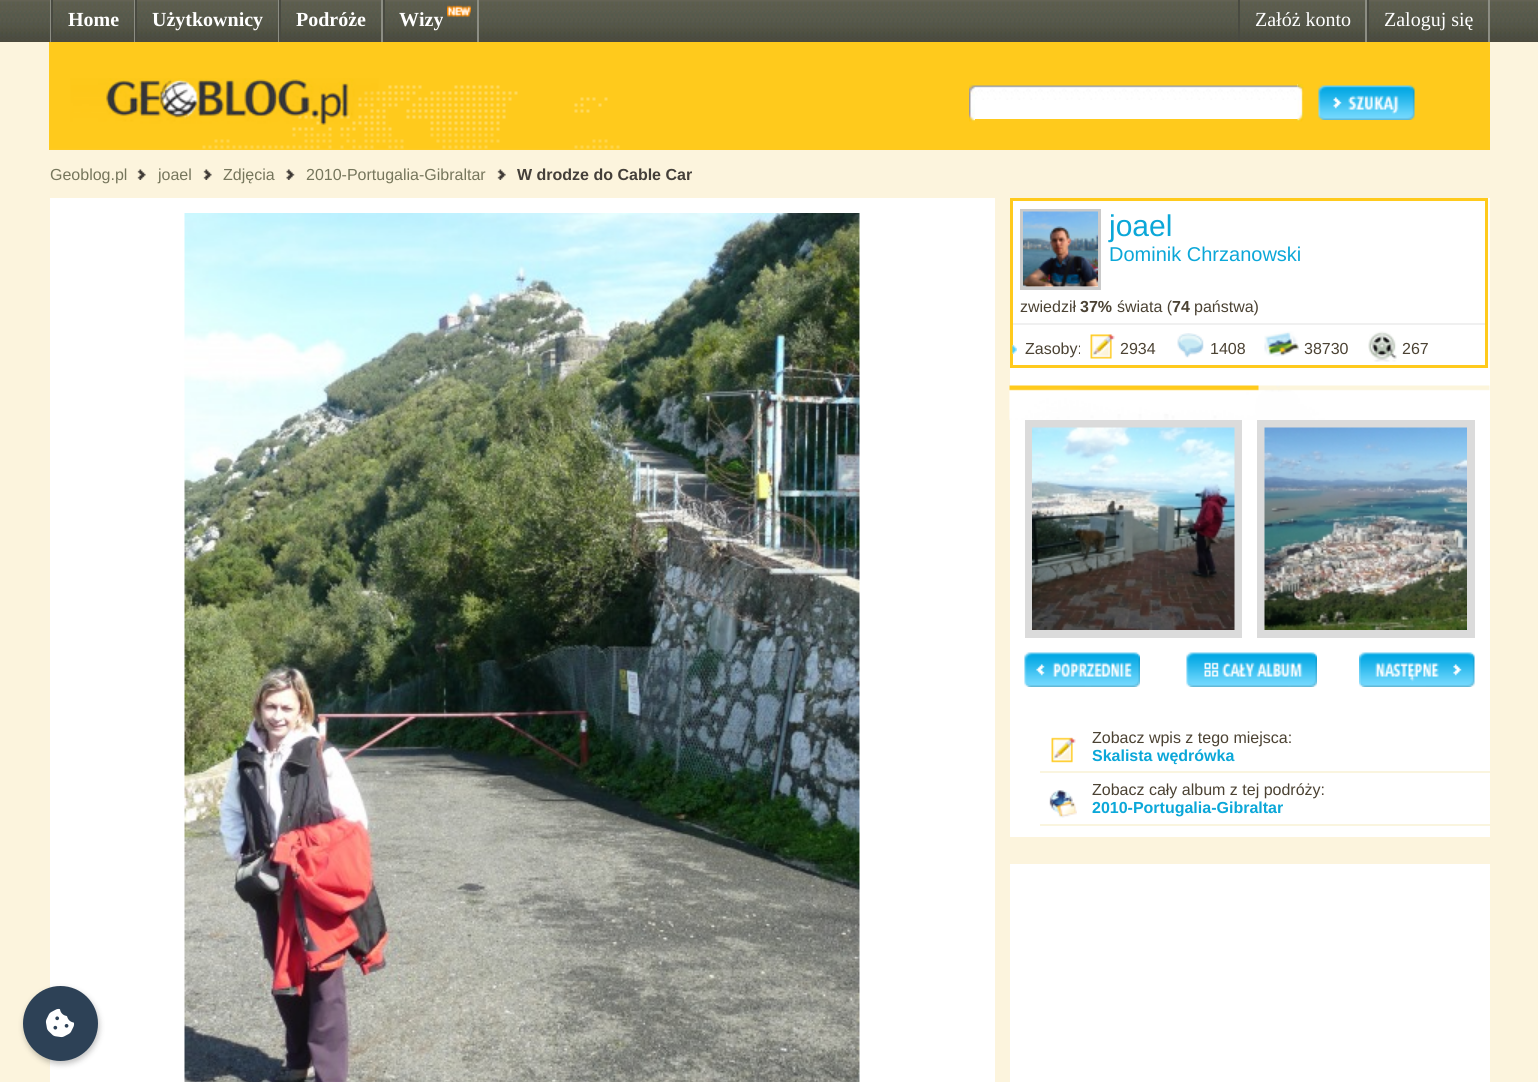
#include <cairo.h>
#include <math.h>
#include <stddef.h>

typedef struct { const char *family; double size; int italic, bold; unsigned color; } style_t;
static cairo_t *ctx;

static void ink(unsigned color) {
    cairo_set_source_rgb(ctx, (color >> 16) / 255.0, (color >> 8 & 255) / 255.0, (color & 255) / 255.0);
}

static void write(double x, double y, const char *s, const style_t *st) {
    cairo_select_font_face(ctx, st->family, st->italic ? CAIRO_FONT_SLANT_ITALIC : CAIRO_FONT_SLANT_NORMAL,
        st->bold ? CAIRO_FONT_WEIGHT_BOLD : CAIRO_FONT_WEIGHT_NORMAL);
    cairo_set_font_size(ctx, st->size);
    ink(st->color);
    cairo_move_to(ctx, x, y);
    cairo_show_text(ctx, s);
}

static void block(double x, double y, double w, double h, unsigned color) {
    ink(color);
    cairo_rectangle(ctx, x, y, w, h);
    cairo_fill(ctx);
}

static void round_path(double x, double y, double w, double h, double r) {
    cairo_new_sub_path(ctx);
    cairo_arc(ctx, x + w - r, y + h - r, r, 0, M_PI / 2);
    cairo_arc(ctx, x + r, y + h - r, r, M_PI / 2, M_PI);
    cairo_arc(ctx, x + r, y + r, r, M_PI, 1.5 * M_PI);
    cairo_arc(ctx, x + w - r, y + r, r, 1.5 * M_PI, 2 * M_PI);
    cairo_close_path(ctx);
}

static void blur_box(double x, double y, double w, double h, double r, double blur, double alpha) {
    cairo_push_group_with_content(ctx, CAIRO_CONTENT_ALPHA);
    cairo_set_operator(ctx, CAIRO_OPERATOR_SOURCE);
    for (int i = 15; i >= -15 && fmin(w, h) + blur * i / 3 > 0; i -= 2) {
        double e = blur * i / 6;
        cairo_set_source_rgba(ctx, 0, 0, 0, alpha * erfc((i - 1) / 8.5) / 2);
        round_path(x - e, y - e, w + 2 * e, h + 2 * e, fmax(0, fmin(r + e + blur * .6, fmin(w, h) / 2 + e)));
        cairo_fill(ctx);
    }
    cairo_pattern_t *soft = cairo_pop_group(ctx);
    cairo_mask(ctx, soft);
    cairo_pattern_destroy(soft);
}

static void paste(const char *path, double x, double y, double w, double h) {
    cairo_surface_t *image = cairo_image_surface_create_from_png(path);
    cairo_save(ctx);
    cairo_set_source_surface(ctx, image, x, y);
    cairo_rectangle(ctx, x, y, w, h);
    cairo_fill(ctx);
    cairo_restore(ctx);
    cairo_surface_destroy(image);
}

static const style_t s1 = {"Liberation Serif", 20, 0, 1, 0xffffff};
static const style_t s2 = {"Liberation Serif", 20, 0, 0, 0xffffff};
static const style_t s3 = {"Liberation Sans", 16, 0, 0, 0x76765c};
static const style_t s4 = {"Liberation Sans", 16, 0, 1, 0x443f39};
static const style_t s5 = {"Liberation Sans", 30, 0, 0, 0x0ba7d8};
static const style_t s6 = {"Liberation Sans", 20, 0, 0, 0x0ba7d8};
static const style_t s7 = {"Liberation Sans", 16, 0, 0, 0x4b4233};
static const style_t s8 = {"Liberation Sans", 16, 0, 1, 0x4b4233};
static const style_t s9 = {"Liberation Sans", 16, 0, 1, 0x0ba7d8};

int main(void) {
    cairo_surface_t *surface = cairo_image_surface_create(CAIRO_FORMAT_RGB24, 1538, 1082);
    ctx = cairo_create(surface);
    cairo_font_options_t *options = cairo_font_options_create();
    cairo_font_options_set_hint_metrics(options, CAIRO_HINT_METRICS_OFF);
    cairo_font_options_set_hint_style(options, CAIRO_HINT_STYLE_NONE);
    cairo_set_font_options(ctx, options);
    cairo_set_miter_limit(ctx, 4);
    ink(0xfcf4dd);
    cairo_paint(ctx);
    paste("pic1.png", 0, 0, 1538, 42);
    block(50, 0, 1, 42, 0x8c8d83);
    block(134, 0, 1, 42, 0x8c8d83);
    block(51, 0, 2, 42, 0x494a41);
    write(68, 26, "Home", &s1);
    block(278, 0, 1, 42, 0x8c8d83);
    block(135, 0, 2, 42, 0x494a41);
    write(152, 26, "Użytkownicy", &s1);
    block(381, 0, 2, 42, 0x8c8d83);
    block(279, 0, 2, 42, 0x494a41);
    write(296, 26, "Podróże", &s1);
    block(477, 0, 2, 42, 0x8c8d83);
    block(383, 0, 2, 42, 0x494a41);
    write(399, 26, "Wizy", &s1);
    paste("pic2.png", 447, 5, 24, 12);
    block(1365, 0, 2, 42, 0x8c8d83);
    block(1238, 0, 2, 42, 0x494a41);
    write(1255, 26, "Załóż konto", &s2);
    block(1488, 0, 2, 42, 0x8c8d83);
    block(1367, 0, 2, 42, 0x494a41);
    write(1384, 26, "Zaloguj się", &s2);
    block(49, 42, 1441, 108, 0xffca1c);
    paste("pic3.png", 50, 78, 570, 72);
    paste("pic4.png", 969, 84, 6, 38);
    block(975, 84, 323, 35, 0xffffff);
    paste("pic5.png", 975, 84, 323, 16);
    paste("pic6.png", 1297, 84, 7, 38);
    paste("pic7.png", 1318, 85, 97, 35);
    write(50, 180, "Geoblog.pl", &s3);
    paste("pic8.png", 137, 169, 9, 11);
    write(158, 180, "joael", &s3);
    paste("pic8.png", 203, 169, 9, 11);
    write(223, 180, "Zdjęcia", &s3);
    paste("pic9.png", 286, 169, 9, 11);
    write(306, 180, "2010-Portugalia-Gibraltar", &s3);
    paste("pic10.png", 497, 169, 9, 11);
    write(517, 180, "W drodze do Cable Car", &s4);
    block(50, 198, 945, 884, 0xffffff);
    paste("pic11.png", 184, 213, 676, 869);
    block(1010, 198, 480, 639, 0xffffff);
    cairo_rectangle(ctx, 1011.5, 199.5, 475, 167);
    ink(0xffca1c);
    cairo_set_line_width(ctx, 3);
    cairo_stroke(ctx);
    block(1013, 323, 472, 2, 0xf0f0f0);
    cairo_rectangle(ctx, 1021.5, 210.5, 78, 78);
    ink(0xcacaca);
    cairo_stroke(ctx);
    paste("pic12.png", 1023, 211, 75, 76);
    write(1109, 236, "joael", &s5);
    write(1109, 261, "Dominik Chrzanowski", &s6);
    write(1020, 312, "zwiedził", &s7);
    write(1080, 312, "37%", &s8);
    write(1117, 312, "świata (", &s7);
    write(1172, 312, "74", &s8);
    write(1194, 312, "państwa)", &s7);
    paste("pic13.png", 1012, 345, 5, 9);
    write(1025, 354, "Zasoby:", &s7);
    paste("pic14.png", 1090, 334, 25, 25);
    write(1120, 354, "2934", &s7);
    paste("pic15.png", 1177, 333, 27, 25);
    write(1210, 354, "1408", &s7);
    paste("pic16.png", 1264, 331, 35, 26);
    write(1304, 354, "38730", &s7);
    paste("pic17.png", 1368, 331, 29, 31);
    write(1402, 354, "267", &s7);
    paste("pic18.png", 1009, 385, 481, 35);
    cairo_rectangle(ctx, 1029, 424, 209, 210);
    ink(0xdbdbdb);
    cairo_set_line_width(ctx, 8);
    cairo_stroke(ctx);
    paste("pic19.png", 1032, 427, 203, 203);
    cairo_rectangle(ctx, 1261, 424, 210, 210);
    cairo_stroke(ctx);
    paste("pic20.png", 1264, 427, 203, 203);
    paste("pic21.png", 1024, 652, 116, 35);
    paste("pic22.png", 1186, 652, 131, 35);
    paste("pic23.png", 1359, 652, 116, 35);
    block(1040, 771, 450, 2, 0xfaf5df);
    paste("pic24.png", 1051, 737, 25, 26);
    write(1092, 743, "Zobacz wpis z tego miejsca:", &s7);
    write(1092, 761, "Skalista wędrówka", &s9);
    block(1040, 824, 450, 2, 0xfaf5df);
    paste("pic25.png", 1049, 790, 28, 28);
    write(1092, 795, "Zobacz cały album z tej podróży:", &s7);
    write(1092, 813, "2010-Portugalia-Gibraltar", &s9);
    block(1010, 864, 480, 218, 0xffffff);
    ink(0x000000);
    blur_box(24, 989, 75, 75, 37.5, 3, 0.25);
    ink(0x2d4156);
    cairo_arc(ctx, 60.5, 1023.5, 37.5, 0, 2 * M_PI);
    cairo_fill(ctx);
    paste("pic26.png", 45, 1008, 30, 30);
    cairo_surface_write_to_png(surface, "screenshot.png");
    cairo_font_options_destroy(options);
    cairo_destroy(ctx);
    cairo_surface_destroy(surface);
    return 0;
}
